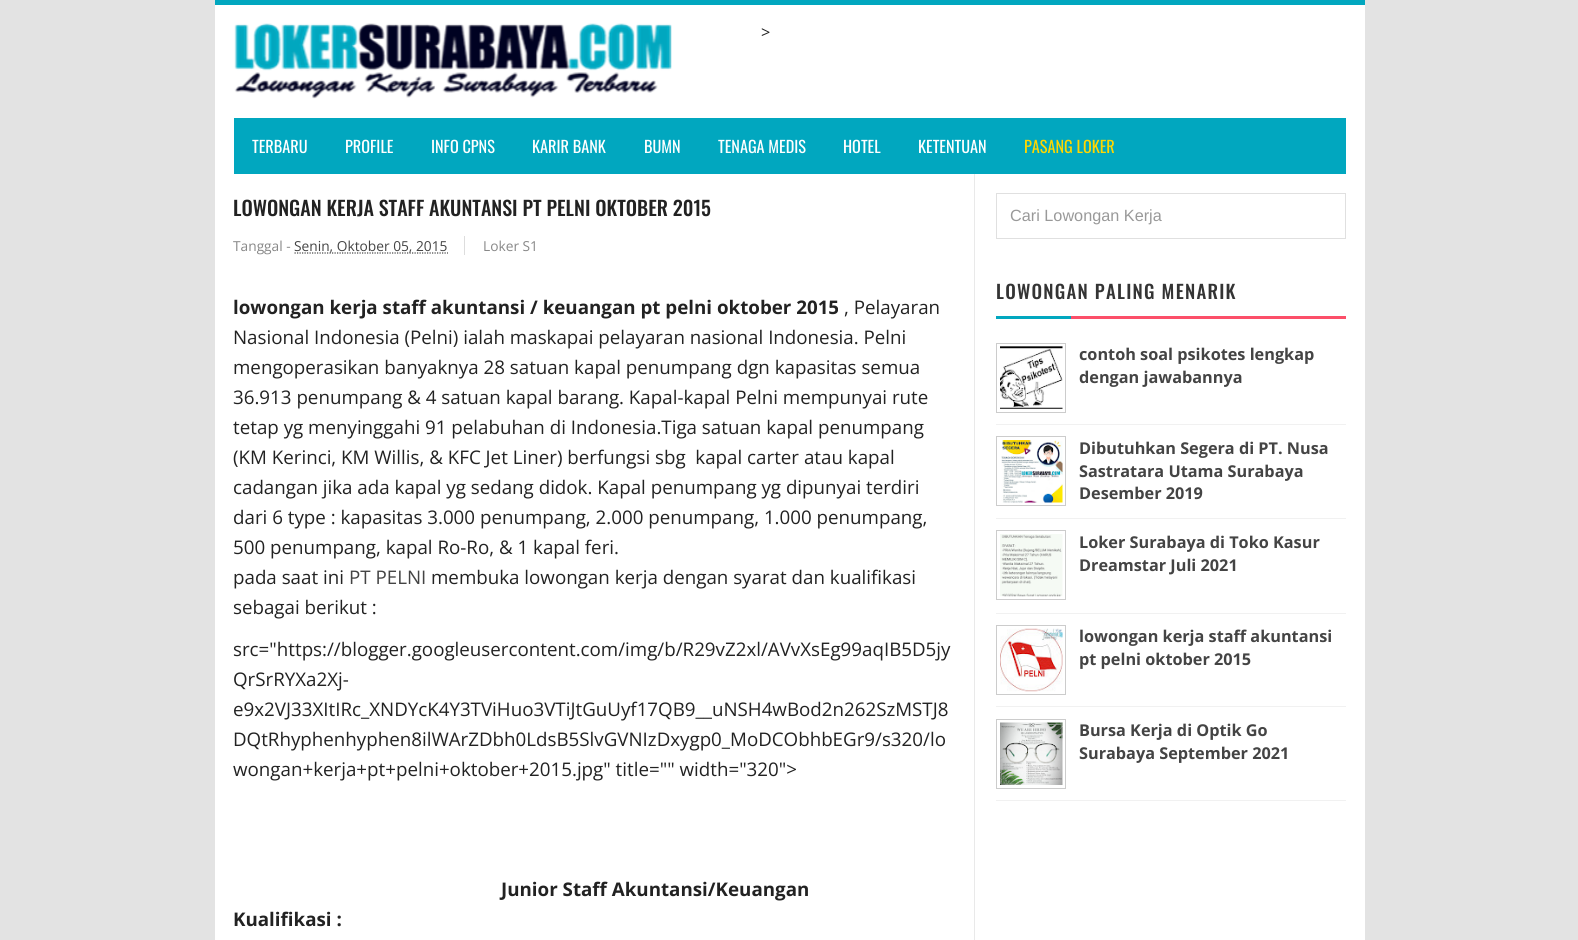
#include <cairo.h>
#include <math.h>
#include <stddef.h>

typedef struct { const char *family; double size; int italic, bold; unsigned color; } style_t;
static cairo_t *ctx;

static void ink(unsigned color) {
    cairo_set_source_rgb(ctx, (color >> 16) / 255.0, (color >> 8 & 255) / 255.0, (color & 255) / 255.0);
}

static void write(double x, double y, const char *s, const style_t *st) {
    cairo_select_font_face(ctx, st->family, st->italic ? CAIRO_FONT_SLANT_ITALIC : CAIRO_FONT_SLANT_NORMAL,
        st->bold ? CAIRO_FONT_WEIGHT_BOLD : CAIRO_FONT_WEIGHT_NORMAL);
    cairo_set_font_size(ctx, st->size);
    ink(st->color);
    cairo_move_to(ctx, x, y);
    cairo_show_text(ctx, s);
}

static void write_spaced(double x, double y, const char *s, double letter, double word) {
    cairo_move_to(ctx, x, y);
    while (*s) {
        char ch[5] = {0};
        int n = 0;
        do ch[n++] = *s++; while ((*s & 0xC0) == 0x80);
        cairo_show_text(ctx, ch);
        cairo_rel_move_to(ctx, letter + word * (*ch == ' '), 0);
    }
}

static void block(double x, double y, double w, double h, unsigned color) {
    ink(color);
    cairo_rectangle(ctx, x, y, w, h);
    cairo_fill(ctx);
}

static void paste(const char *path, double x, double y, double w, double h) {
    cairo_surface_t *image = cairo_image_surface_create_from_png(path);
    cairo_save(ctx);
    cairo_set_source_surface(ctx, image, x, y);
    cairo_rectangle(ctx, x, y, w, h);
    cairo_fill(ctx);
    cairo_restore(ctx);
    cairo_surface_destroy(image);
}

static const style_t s1 = {"Open Sans", 16.25, 0, 0, 0x222222};
static const style_t s2 = {"Oswald", 16.25, 0, 0, 0xffffff};
static const style_t s3 = {"Oswald", 16.25, 0, 0, 0xffd700};
static const style_t s4 = {"Oswald Medium", 20, 0, 0, 0x222222};
static const style_t s5 = {"Open Sans", 13.75, 0, 0, 0x888888};
static const style_t s6 = {"Open Sans", 13.75, 0, 0, 0x444444};
static const style_t s7 = {"Open Sans", 18.75, 0, 1, 0x222222};
static const style_t s8 = {"Open Sans", 18.75, 0, 0, 0x222222};
static const style_t s9 = {"Open Sans", 18.75, 0, 0, 0x444444};
static const style_t s10 = {"Liberation Sans", 16.25, 0, 0, 0x999999};
static const style_t s11 = {"Open Sans", 16.25, 0, 1, 0x444444};

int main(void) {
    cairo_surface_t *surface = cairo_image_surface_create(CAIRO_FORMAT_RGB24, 1578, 940);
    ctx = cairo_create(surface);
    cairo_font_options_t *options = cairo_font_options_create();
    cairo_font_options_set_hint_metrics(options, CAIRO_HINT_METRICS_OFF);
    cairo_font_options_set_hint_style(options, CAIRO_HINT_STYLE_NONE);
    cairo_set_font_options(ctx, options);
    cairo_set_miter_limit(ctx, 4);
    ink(0xe3e3e3);
    cairo_paint(ctx);
    block(215, 5, 1150, 935, 0xffffff);
    block(215, 0, 1150, 5, 0x01a7bf);
    paste("pic1.png", 234, 23, 438, 76);
    write(761, 38, ">", &s1);
    block(234, 118, 1112, 56, 0x01a7bf);
    write(252, 153, "TERBARU", &s2);
    write(345, 153, "PROFILE", &s2);
    write(431, 153, "INFO CPNS", &s2);
    write(532, 153, "KARIR BANK", &s2);
    write(644, 153, "BUMN", &s2);
    write(718, 153, "TENAGA MEDIS", &s2);
    write(843, 153, "HOTEL", &s2);
    write(918, 153, "KETENTUAN", &s2);
    write(1024, 153, "PASANG LOKER", &s3);
    block(974, 174, 1, 766, 0xe9e9e9);
    write(233, 216, "LOWONGAN KERJA STAFF AKUNTANSI PT PELNI OKTOBER 2015", &s4);
    write(233, 251, "Tanggal -", &s5);
    cairo_new_path(ctx);
    cairo_move_to(ctx, 294.5, 253);
    cairo_line_to(ctx, 448, 253);
    ink(0x444444);
    cairo_set_line_width(ctx, 1.2);
    cairo_set_dash(ctx, (double[]){1.25, 1.25}, 2, 0);
    cairo_stroke(ctx);
    write(294, 251, "Senin, Oktober 05, 2015", &s6);
    block(464, 236, 1, 19, 0xdddddd);
    write(483, 251, "Loker S1", &s5);
    write(233, 314, "lowongan kerja staff akuntansi / keuangan pt pelni oktober 2015", &s7);
    write(844, 314, ", Pelayaran", &s8);
    write(233, 344, "Nasional Indonesia (Pelni) ialah maskapai pelayaran nasional Indonesia. Pelni", &s8);
    write(233, 374, "mengoperasikan banyaknya 28 satuan kapal penumpang dgn kapasitas semua", &s8);
    write(233, 404, "36.913 penumpang & 4 satuan kapal barang. Kapal-kapal Pelni mempunyai rute", &s8);
    write(233, 434, "tetap yg menyinggahi 91 pelabuhan di Indonesia.Tiga satuan kapal penumpang", &s8);
    write(233, 464, "(KM Kerinci, KM Willis, & KFC Jet Liner) berfungsi sbg  kapal carter atau kapal", &s8);
    write(233, 494, "cadangan jika ada kapal yg sedang didok. Kapal penumpang yg dipunyai terdiri", &s8);
    write(233, 524, "dari 6 type : kapasitas 3.000 penumpang, 2.000 penumpang, 1.000 penumpang,", &s8);
    write(233, 554, "500 penumpang, kapal Ro-Ro, & 1 kapal feri.", &s8);
    write(233, 584, "pada saat ini", &s8);
    write(349, 584, "PT PELNI", &s9);
    write(431, 584, "membuka lowongan kerja dengan syarat dan kualifikasi", &s8);
    write(233, 614, "sebagai berikut :", &s8);
    write(233, 656, "src=\"https://blogger.googleusercontent.com/img/b/R29vZ2xl/AVvXsEg99aqIB5D5jy", &s8);
    write(233, 686, "QrSrRYXa2Xj-", &s8);
    write(233, 716, "e9x2VJ33XItIRc_XNDYcK4Y3TViHuo3VTiJtGuUyf17QB9__uNSH4wBod2n262SzMSTJ8", &s8);
    write(233, 746, "DQtRhyphenhyphen8ilWArZDbh0LdsB5SlvGVNIzDxygp0_MoDCObhbEGr9/s320/lo", &s8);
    write(233, 776, "wongan+kerja+pt+pelni+oktober+2015.jpg\" title=\"\" width=\"320\">", &s8);
    write(501, 896, "Junior Staff Akuntansi/Keuangan", &s7);
    write(233, 926, "Kualifikasi :", &s7);
    cairo_rectangle(ctx, 996.5, 193.5, 349, 45);
    ink(0xe0e0e0);
    cairo_set_line_width(ctx, 1);
    cairo_set_dash(ctx, NULL, 0, 0);
    cairo_stroke(ctx);
    write(1010, 221, "Cari Lowongan Kerja", &s10);
    block(1071, 316, 275, 3, 0xfc4f69);
    cairo_select_font_face(ctx, "Oswald Medium", CAIRO_FONT_SLANT_NORMAL, CAIRO_FONT_WEIGHT_NORMAL);
    cairo_set_font_size(ctx, 18.75);
    ink(0x343434);
    write_spaced(996, 299, "LOWONGAN PALING MENARIK", 1.25, 0);
    block(996, 316, 75, 3, 0x01a7bf);
    block(996, 424, 350, 1, 0xf1f1f1);
    cairo_rectangle(ctx, 996.5, 343.5, 69, 69);
    ink(0xcccccc);
    cairo_stroke(ctx);
    paste("pic2.png", 1000, 346, 63, 63);
    write(1079, 360, "contoh soal psikotes lengkap", &s11);
    write(1079, 383, "dengan jawabannya", &s11);
    block(996, 518, 350, 1, 0xf1f1f1);
    cairo_rectangle(ctx, 996.5, 436.5, 69, 69);
    ink(0xcccccc);
    cairo_stroke(ctx);
    paste("pic3.png", 1001, 440, 62, 63);
    write(1079, 454, "Dibutuhkan Segera di PT. Nusa", &s11);
    write(1079, 477, "Sastratara Utama Surabaya", &s11);
    write(1079, 499, "Desember 2019", &s11);
    block(996, 613, 350, 1, 0xf1f1f1);
    cairo_rectangle(ctx, 996.5, 530.5, 69, 69);
    ink(0xcccccc);
    cairo_stroke(ctx);
    paste("pic4.png", 1000, 534, 63, 63);
    write(1079, 548, "Loker Surabaya di Toko Kasur", &s11);
    write(1079, 571, "Dreamstar Juli 2021", &s11);
    block(996, 706, 350, 1, 0xf1f1f1);
    cairo_rectangle(ctx, 996.5, 625.5, 69, 69);
    ink(0xcccccc);
    cairo_stroke(ctx);
    paste("pic5.png", 1000, 628, 63, 64);
    write(1079, 642, "lowongan kerja staff akuntansi", &s11);
    write(1079, 665, "pt pelni oktober 2015", &s11);
    block(996, 800, 350, 1, 0xf1f1f1);
    cairo_rectangle(ctx, 996.5, 719.5, 69, 69);
    ink(0xcccccc);
    cairo_stroke(ctx);
    paste("pic6.png", 1000, 722, 63, 63);
    write(1079, 736, "Bursa Kerja di Optik Go", &s11);
    write(1079, 759, "Surabaya September 2021", &s11);
    cairo_surface_write_to_png(surface, "screenshot.png");
    cairo_font_options_destroy(options);
    cairo_destroy(ctx);
    cairo_surface_destroy(surface);
    return 0;
}
